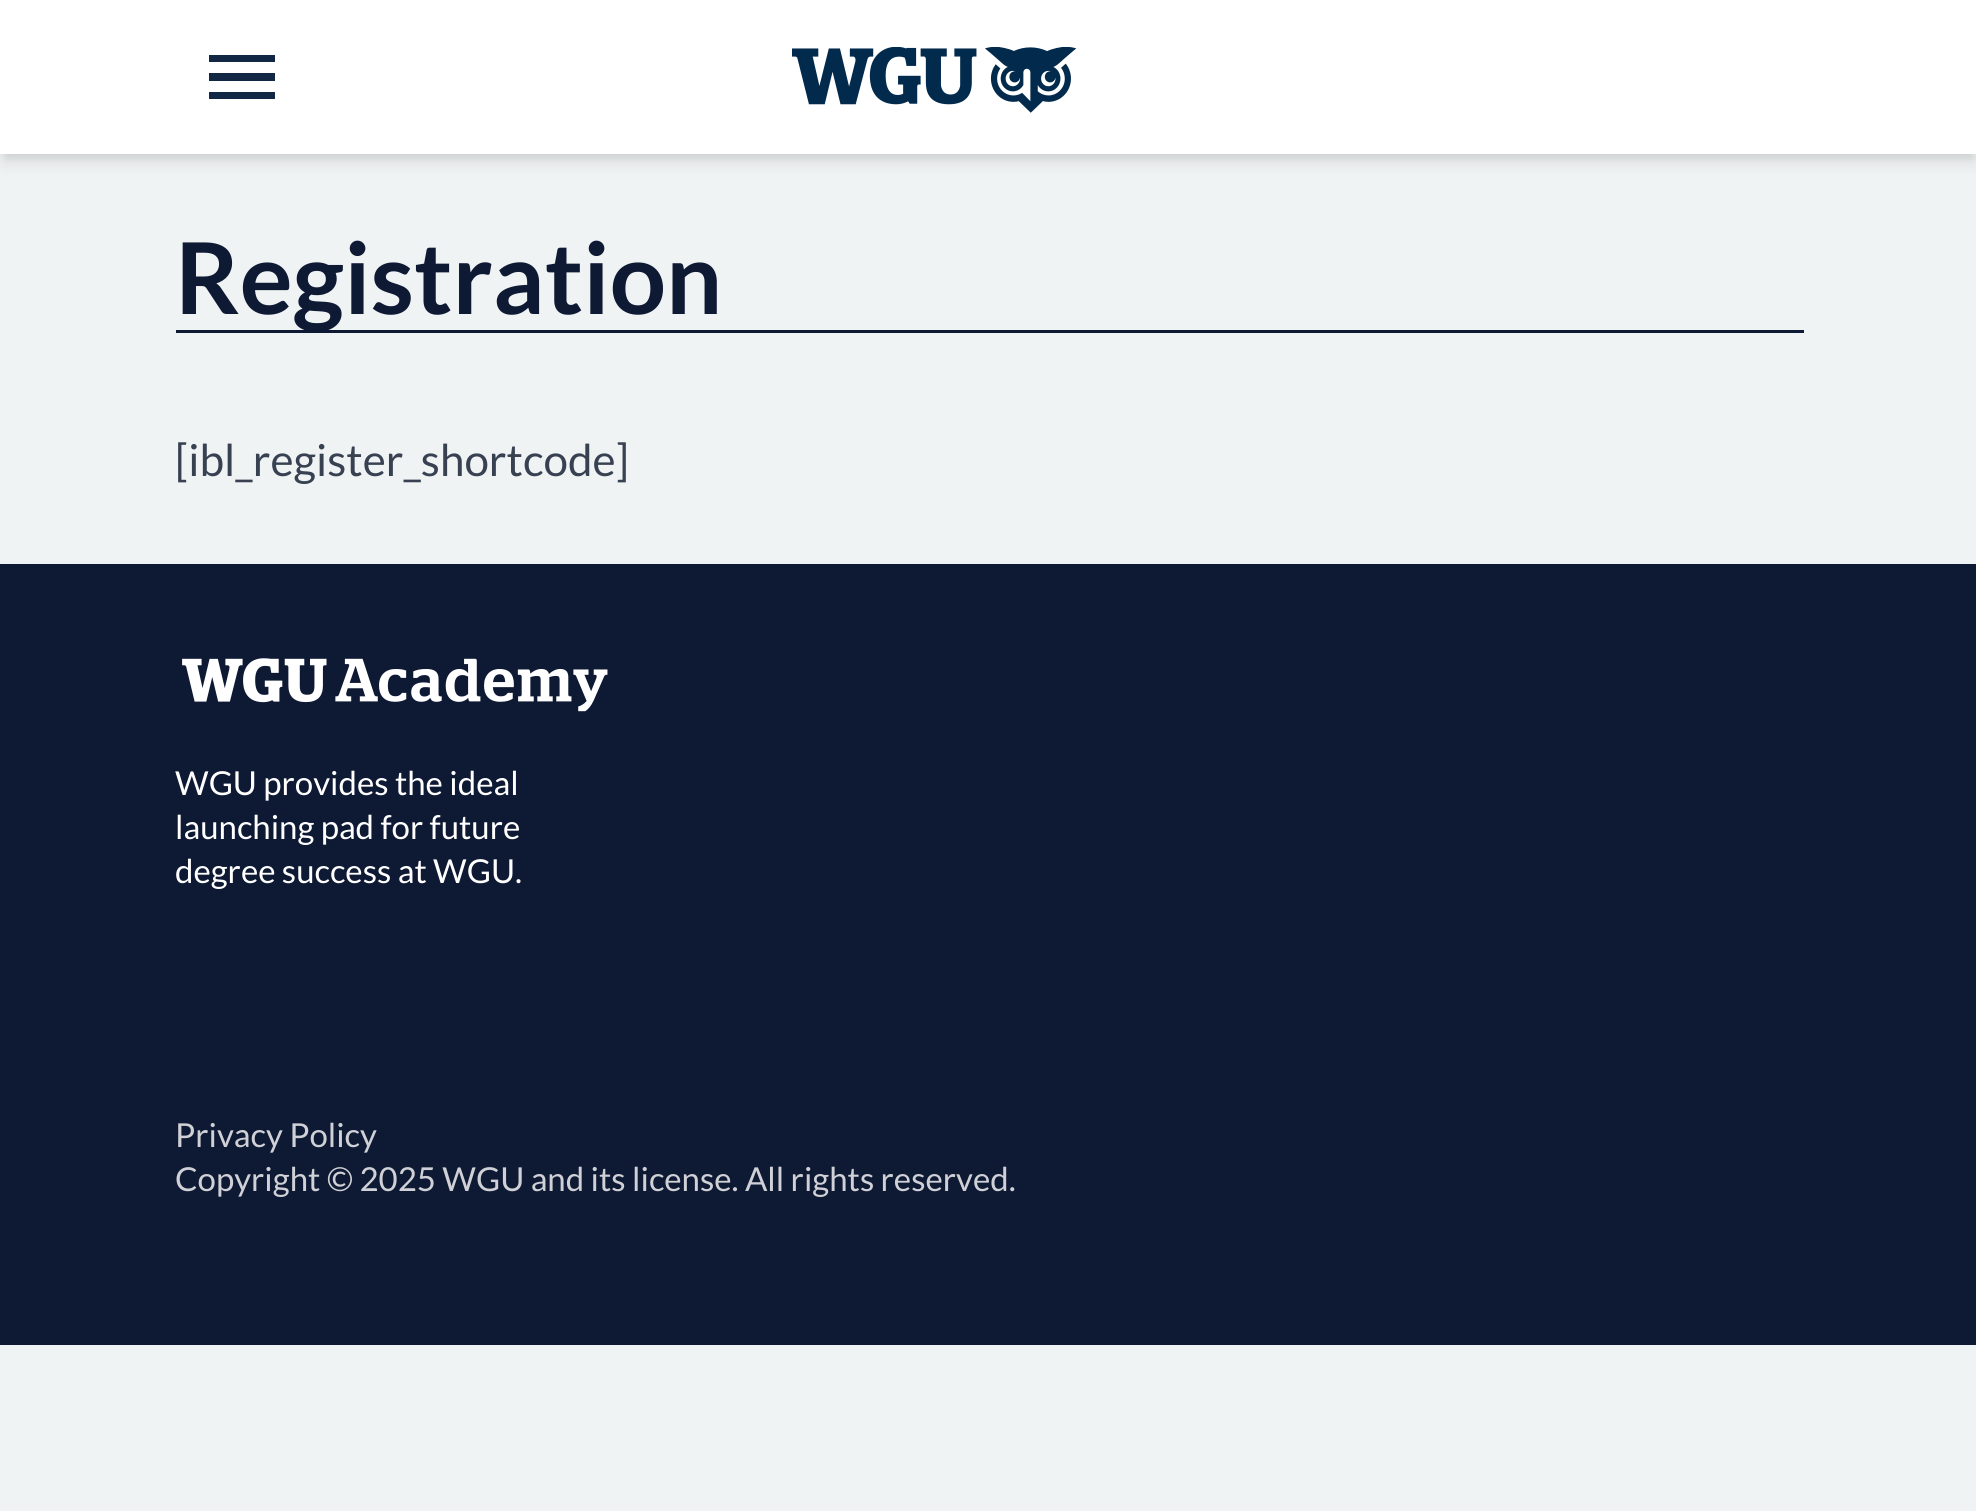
#include <cairo.h>
#include <math.h>
#include <stddef.h>

typedef struct { const char *family; double size; int italic, bold; unsigned color; } style_t;
static cairo_t *ctx;

static void ink(unsigned color) {
    cairo_set_source_rgb(ctx, (color >> 16) / 255.0, (color >> 8 & 255) / 255.0, (color & 255) / 255.0);
}

static void write(double x, double y, const char *s, const style_t *st) {
    cairo_select_font_face(ctx, st->family, st->italic ? CAIRO_FONT_SLANT_ITALIC : CAIRO_FONT_SLANT_NORMAL,
        st->bold ? CAIRO_FONT_WEIGHT_BOLD : CAIRO_FONT_WEIGHT_NORMAL);
    cairo_set_font_size(ctx, st->size);
    ink(st->color);
    cairo_move_to(ctx, x, y);
    cairo_show_text(ctx, s);
}

static void block(double x, double y, double w, double h, unsigned color) {
    ink(color);
    cairo_rectangle(ctx, x, y, w, h);
    cairo_fill(ctx);
}

static void round_path(double x, double y, double w, double h, double r) {
    cairo_new_sub_path(ctx);
    cairo_arc(ctx, x + w - r, y + h - r, r, 0, M_PI / 2);
    cairo_arc(ctx, x + r, y + h - r, r, M_PI / 2, M_PI);
    cairo_arc(ctx, x + r, y + r, r, M_PI, 1.5 * M_PI);
    cairo_arc(ctx, x + w - r, y + r, r, 1.5 * M_PI, 2 * M_PI);
    cairo_close_path(ctx);
}

static void blur_box(double x, double y, double w, double h, double r, double blur, double alpha) {
    cairo_push_group_with_content(ctx, CAIRO_CONTENT_ALPHA);
    cairo_set_operator(ctx, CAIRO_OPERATOR_SOURCE);
    for (int i = 15; i >= -15 && fmin(w, h) + blur * i / 3 > 0; i -= 2) {
        double e = blur * i / 6;
        cairo_set_source_rgba(ctx, 0, 0, 0, alpha * erfc((i - 1) / 8.5) / 2);
        round_path(x - e, y - e, w + 2 * e, h + 2 * e, fmax(0, fmin(r + e + blur * .6, fmin(w, h) / 2 + e)));
        cairo_fill(ctx);
    }
    cairo_pattern_t *soft = cairo_pop_group(ctx);
    cairo_mask(ctx, soft);
    cairo_pattern_destroy(soft);
}

static void paste(const char *path, double x, double y, double w, double h) {
    cairo_surface_t *image = cairo_image_surface_create_from_png(path);
    cairo_save(ctx);
    cairo_set_source_surface(ctx, image, x, y);
    cairo_rectangle(ctx, x, y, w, h);
    cairo_fill(ctx);
    cairo_restore(ctx);
    cairo_surface_destroy(image);
}

static const style_t s1 = {"Lato", 99, 0, 1, 0x0e1934};
static const style_t s2 = {"Lato", 44, 0, 0, 0x374151};
static const style_t s3 = {"Lato", 33, 0, 0, 0xffffff};
static const style_t s4 = {"Lato", 33, 0, 0, 0xcfd1d6};

int main(void) {
    cairo_surface_t *surface = cairo_image_surface_create(CAIRO_FORMAT_RGB24, 1976, 1511);
    ctx = cairo_create(surface);
    cairo_font_options_t *options = cairo_font_options_create();
    cairo_font_options_set_hint_metrics(options, CAIRO_HINT_METRICS_OFF);
    cairo_font_options_set_hint_style(options, CAIRO_HINT_STYLE_NONE);
    cairo_set_font_options(ctx, options);
    cairo_set_miter_limit(ctx, 4);
    ink(0xf0f3f4);
    cairo_paint(ctx);
    ink(0x000000);
    blur_box(6, 11, 1966, 143, 0, 5.5, 0.1);
    blur_box(3, 14, 1972, 148, 0, 8, 0.1);
    block(0, 0, 1976, 154, 0xffffff);
    ink(0x112743);
    cairo_new_path(ctx);
    cairo_move_to(ctx, 209, 99);
    cairo_line_to(ctx, 275, 99);
    cairo_line_to(ctx, 275, 92);
    cairo_line_to(ctx, 209, 92);
    cairo_close_path(ctx);
    cairo_move_to(ctx, 209, 81);
    cairo_line_to(ctx, 275, 81);
    cairo_line_to(ctx, 275, 73);
    cairo_line_to(ctx, 209, 73);
    cairo_close_path(ctx);
    cairo_move_to(ctx, 209, 55);
    cairo_line_to(ctx, 209, 62);
    cairo_line_to(ctx, 275, 62);
    cairo_line_to(ctx, 275, 55);
    cairo_close_path(ctx);
    cairo_fill(ctx);
    paste("pic1.png", 792, 47, 285, 66);
    block(176, 330, 1628, 3, 0x0e1934);
    write(175, 314, "Registration", &s1);
    write(175, 476, "[ibl_register_shortcode]", &s2);
    block(0, 564, 1976, 781, 0x0e1934);
    paste("pic2.png", 182, 658, 426, 54);
    write(175, 795, "WGU provides the ideal", &s3);
    write(175, 839, "launching pad for future", &s3);
    write(175, 883, "degree success at WGU.", &s3);
    write(175, 1147, "Privacy Policy", &s4);
    write(175, 1191, "Copyright © 2025 WGU and its license. All rights reserved.", &s4);
    cairo_surface_write_to_png(surface, "screenshot.png");
    cairo_font_options_destroy(options);
    cairo_destroy(ctx);
    cairo_surface_destroy(surface);
    return 0;
}
